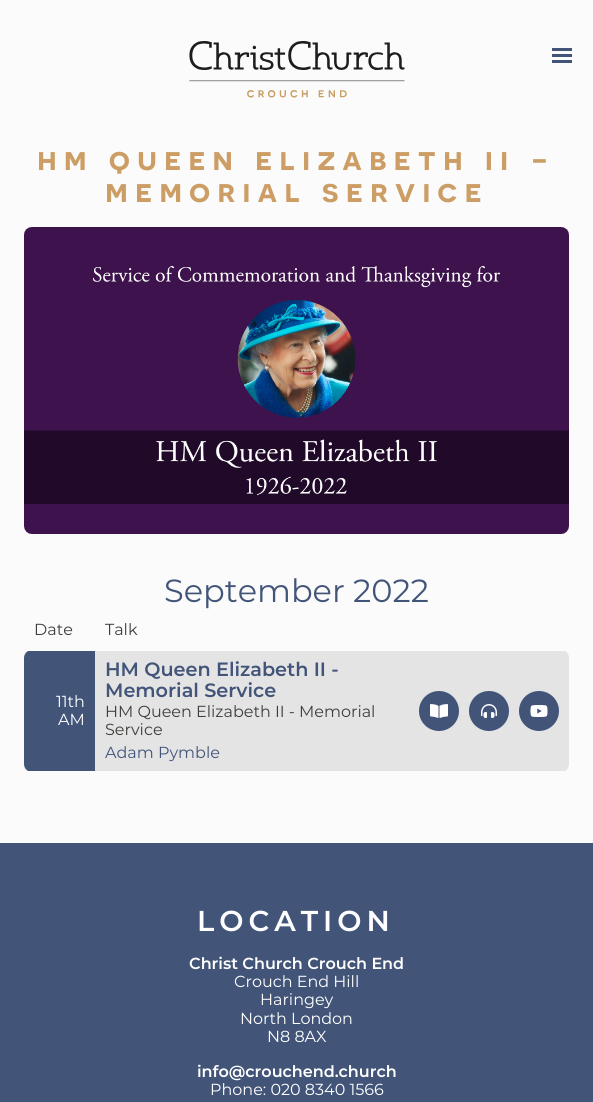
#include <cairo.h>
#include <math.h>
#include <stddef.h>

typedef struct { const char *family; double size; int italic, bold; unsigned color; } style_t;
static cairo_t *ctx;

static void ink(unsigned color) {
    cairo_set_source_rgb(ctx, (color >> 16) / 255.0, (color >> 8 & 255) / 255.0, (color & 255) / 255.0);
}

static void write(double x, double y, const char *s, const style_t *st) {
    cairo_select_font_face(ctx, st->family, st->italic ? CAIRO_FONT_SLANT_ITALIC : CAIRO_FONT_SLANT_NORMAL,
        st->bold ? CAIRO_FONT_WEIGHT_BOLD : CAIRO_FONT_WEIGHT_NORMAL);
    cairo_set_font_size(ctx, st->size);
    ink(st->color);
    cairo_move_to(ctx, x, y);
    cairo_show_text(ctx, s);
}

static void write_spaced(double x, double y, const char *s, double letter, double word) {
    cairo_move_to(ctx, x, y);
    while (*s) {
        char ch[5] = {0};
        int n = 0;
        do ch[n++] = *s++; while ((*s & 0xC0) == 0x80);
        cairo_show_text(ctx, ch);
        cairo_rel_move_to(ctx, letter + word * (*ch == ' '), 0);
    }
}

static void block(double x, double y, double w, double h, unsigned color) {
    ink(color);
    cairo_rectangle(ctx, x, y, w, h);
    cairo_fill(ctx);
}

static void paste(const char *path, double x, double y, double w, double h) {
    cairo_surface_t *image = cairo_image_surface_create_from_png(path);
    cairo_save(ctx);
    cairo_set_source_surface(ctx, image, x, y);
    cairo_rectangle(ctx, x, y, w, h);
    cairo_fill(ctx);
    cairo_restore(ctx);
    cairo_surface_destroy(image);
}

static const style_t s1 = {"Montserrat", 32, 0, 0, 0x425579};
static const style_t s2 = {"Montserrat", 16, 0, 0, 0x3e3e3b};
static const style_t s3 = {"Montserrat", 16, 0, 0, 0xffffff};
static const style_t s4 = {"Montserrat SemiBold", 19.25, 0, 0, 0x425579};
static const style_t s5 = {"Montserrat", 16, 0, 0, 0x425579};
static const style_t s6 = {"Montserrat SemiBold", 16, 0, 0, 0xffffff};

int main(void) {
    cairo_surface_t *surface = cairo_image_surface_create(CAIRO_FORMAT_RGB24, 593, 1102);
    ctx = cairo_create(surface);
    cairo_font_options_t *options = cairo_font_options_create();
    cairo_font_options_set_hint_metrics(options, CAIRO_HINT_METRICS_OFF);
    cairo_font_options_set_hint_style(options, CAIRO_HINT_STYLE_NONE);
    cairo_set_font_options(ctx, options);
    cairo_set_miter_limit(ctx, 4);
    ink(0xfbfbfb);
    cairo_paint(ctx);
    paste("pic1.png", 189, 41, 216, 57);
    block(552, 48, 20, 3, 0x425579);
    block(552, 54, 20, 3, 0x425579);
    block(552, 60, 20, 3, 0x425579);
    cairo_select_font_face(ctx, "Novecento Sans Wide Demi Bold", CAIRO_FONT_SLANT_NORMAL, CAIRO_FONT_WEIGHT_NORMAL);
    cairo_set_font_size(ctx, 32);
    ink(0xcc9e66);
    write_spaced(37, 170, "hm queen elizabeth ii -", 7, 0);
    write_spaced(105, 202, "memorial service", 7, 0);
    paste("pic2.png", 24, 227, 545, 307);
    write(164, 602, "September 2022", &s1);
    cairo_new_path(ctx);
    cairo_move_to(ctx, 32, 650);
    cairo_line_to(ctx, 95, 650);
    cairo_line_to(ctx, 95, 772);
    cairo_line_to(ctx, 32, 772);
    cairo_curve_to(ctx, 27.5, 772, 24, 768.5, 24, 764);
    cairo_line_to(ctx, 24, 658);
    cairo_curve_to(ctx, 24, 653.5, 27.5, 650, 32, 650);
    cairo_close_path(ctx);
    cairo_fill(ctx);
    ink(0xe4e4e4);
    cairo_new_path(ctx);
    cairo_move_to(ctx, 509, 650);
    cairo_line_to(ctx, 561, 650);
    cairo_curve_to(ctx, 565.5, 650, 569, 653.5, 569, 658);
    cairo_line_to(ctx, 569, 764);
    cairo_curve_to(ctx, 569, 768.5, 565.5, 772, 561, 772);
    cairo_line_to(ctx, 509, 772);
    cairo_close_path(ctx);
    cairo_fill(ctx);
    block(23, 650, 547, 1, 0xfbfbfb);
    write(34, 635, "Date", &s2);
    write(105, 635, "Talk", &s2);
    block(23, 771, 547, 1, 0xfbfbfb);
    write(56, 707, "11th", &s3);
    write(58, 725, "AM", &s3);
    block(95, 651, 414, 120, 0xe4e4e4);
    write(105, 676, "HM Queen Elizabeth II -", &s4);
    write(105, 697, "Memorial Service", &s4);
    write(105, 717, "HM Queen Elizabeth II - Memorial", &s2);
    write(105, 735, "Service", &s2);
    write(105, 758, "Adam Pymble", &s5);
    cairo_new_path(ctx);
    cairo_arc(ctx, 439, 711, 20, 0, 2 * M_PI);
    cairo_fill(ctx);
    paste("pic3.png", 430, 704, 18, 14);
    cairo_arc(ctx, 489, 711, 20, 0, 2 * M_PI);
    cairo_fill(ctx);
    paste("pic4.png", 481, 704, 16, 14);
    cairo_arc(ctx, 539, 711, 20, 0, 2 * M_PI);
    cairo_fill(ctx);
    paste("pic5.png", 530, 705, 18, 12);
    block(0, 843, 593, 259, 0x425579);
    cairo_select_font_face(ctx, "Montserrat SemiBold", CAIRO_FONT_SLANT_NORMAL, CAIRO_FONT_WEIGHT_NORMAL);
    cairo_set_font_size(ctx, 28.75);
    ink(0xffffff);
    write_spaced(197, 931, "LOCATION", 5, 0);
    write(189, 969, "Christ Church Crouch End", &s6);
    write(234, 987, "Crouch End Hill", &s3);
    write(260, 1005, "Haringey", &s3);
    write(240, 1024, "North London", &s3);
    write(267, 1042, "N8 8AX", &s3);
    write(197, 1077, "info@crouchend.church", &s6);
    write(210, 1095, "Phone: 020 8340 1566", &s3);
    cairo_surface_write_to_png(surface, "screenshot.png");
    cairo_font_options_destroy(options);
    cairo_destroy(ctx);
    cairo_surface_destroy(surface);
    return 0;
}
